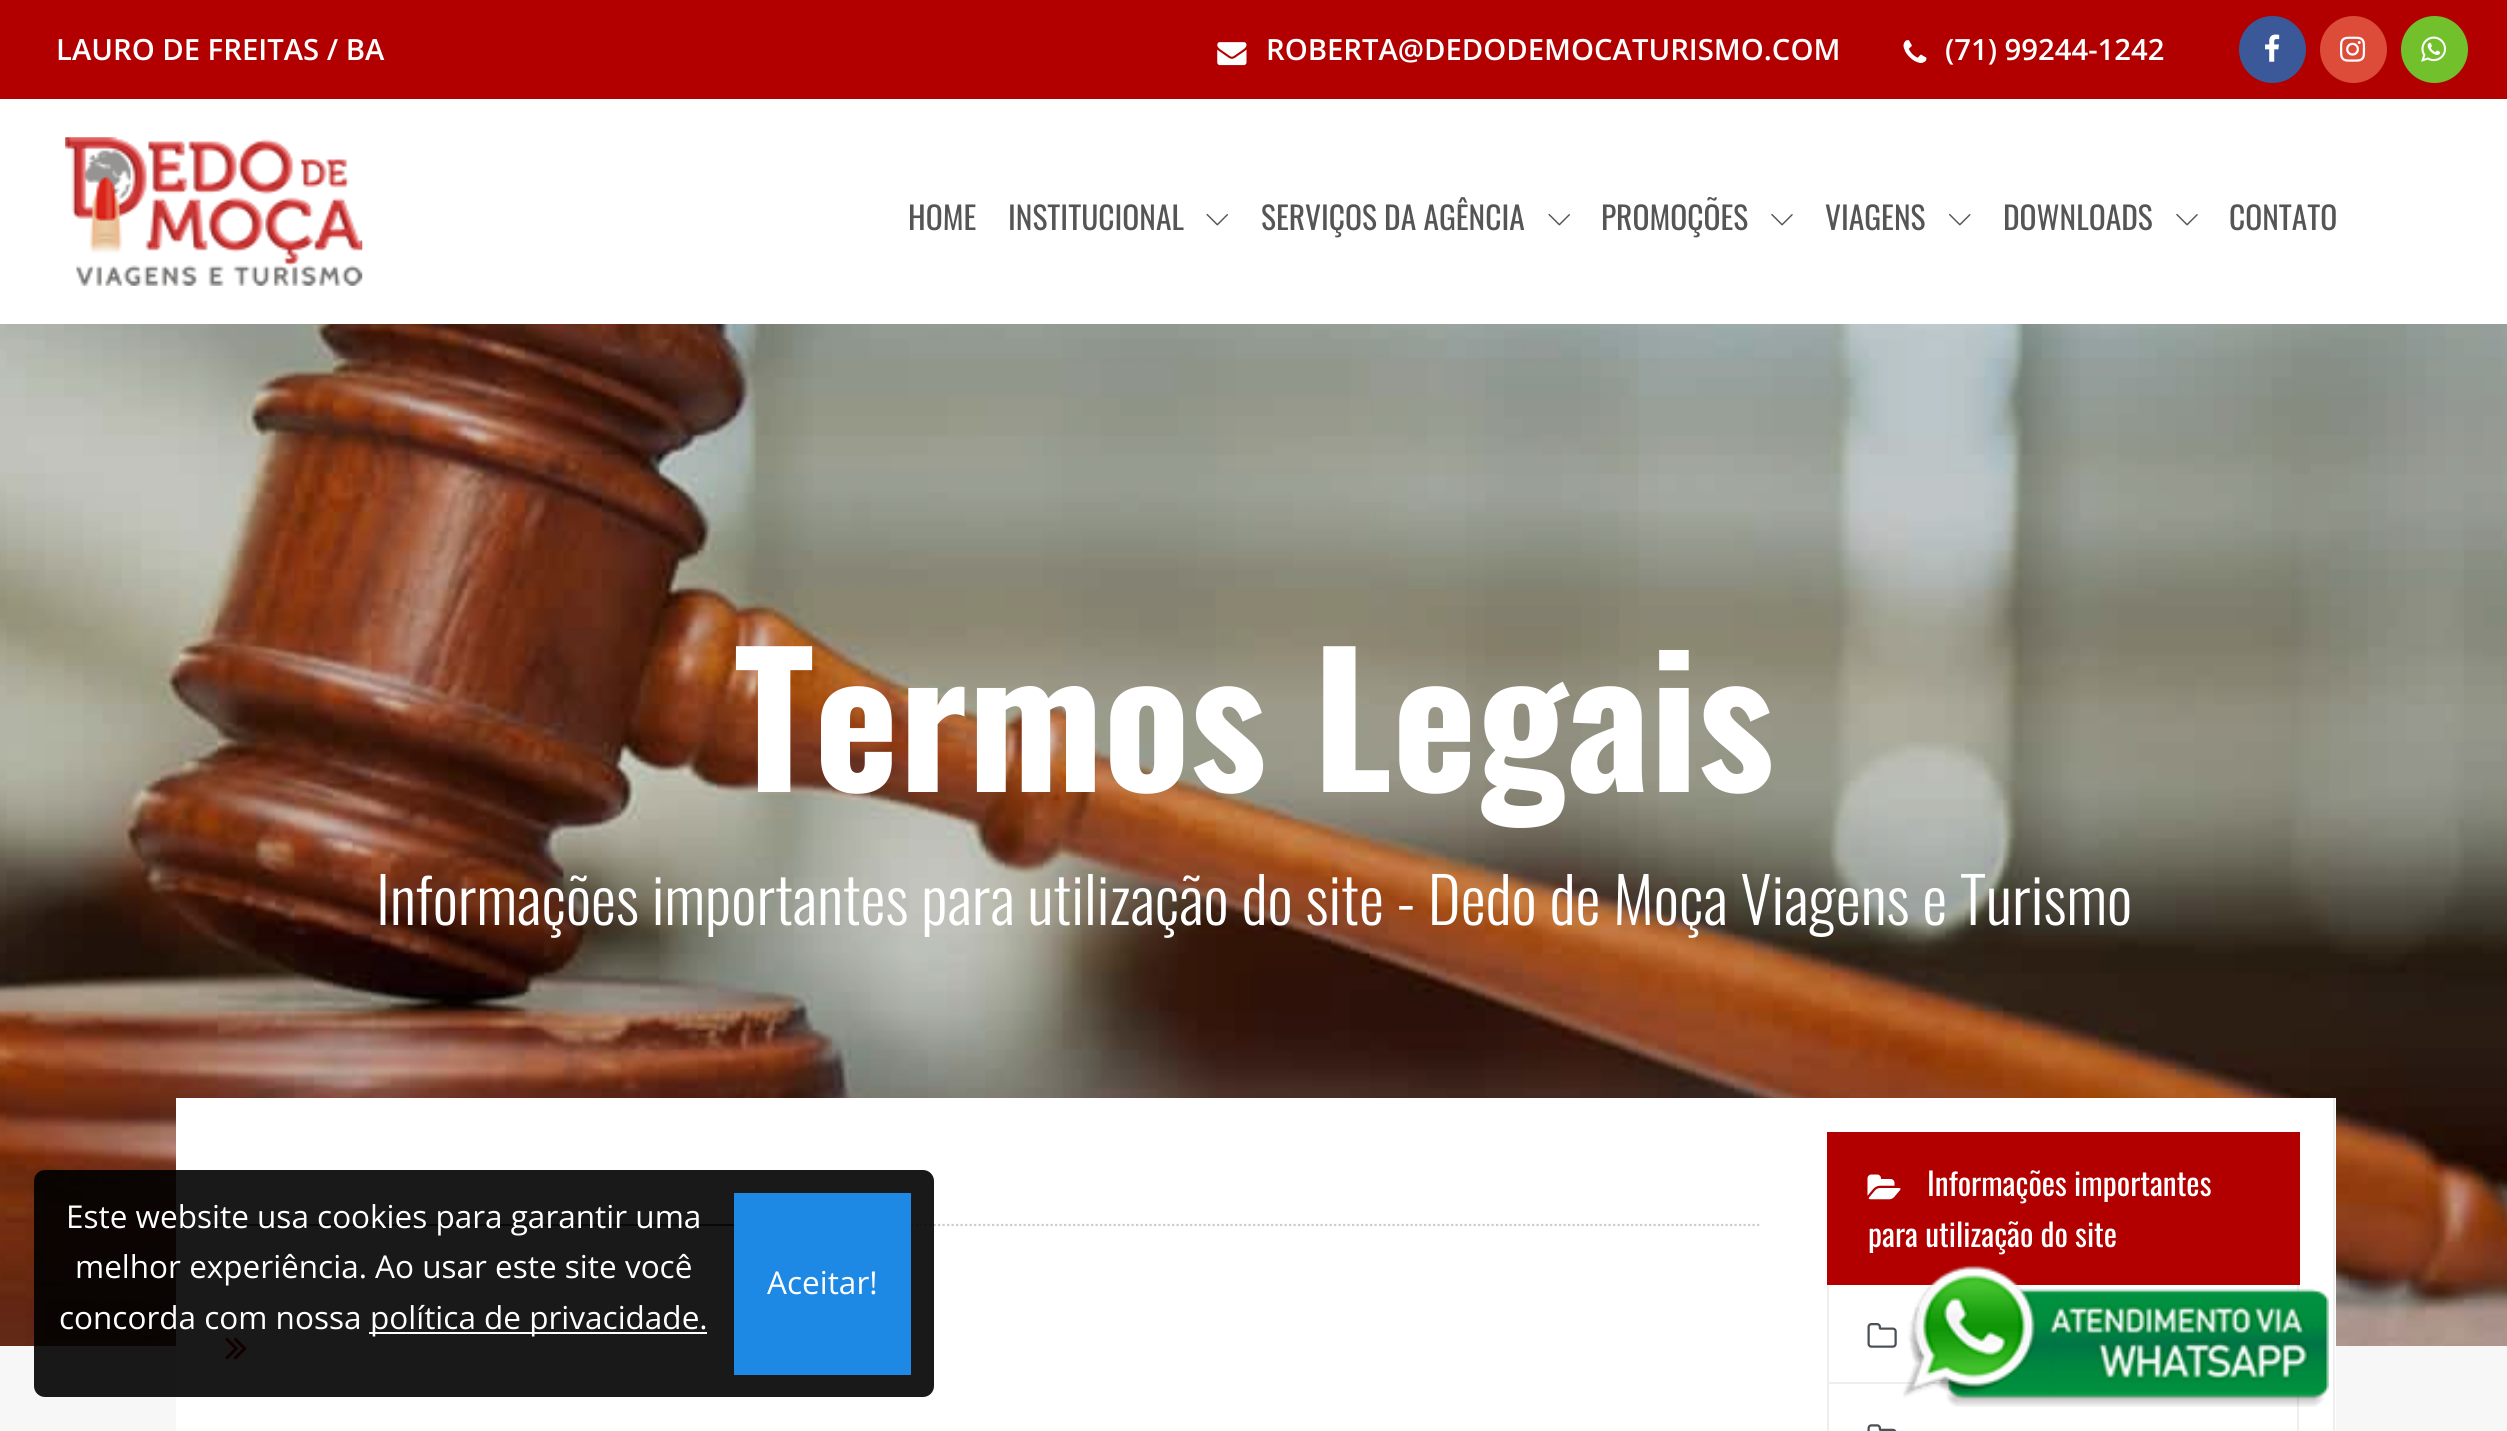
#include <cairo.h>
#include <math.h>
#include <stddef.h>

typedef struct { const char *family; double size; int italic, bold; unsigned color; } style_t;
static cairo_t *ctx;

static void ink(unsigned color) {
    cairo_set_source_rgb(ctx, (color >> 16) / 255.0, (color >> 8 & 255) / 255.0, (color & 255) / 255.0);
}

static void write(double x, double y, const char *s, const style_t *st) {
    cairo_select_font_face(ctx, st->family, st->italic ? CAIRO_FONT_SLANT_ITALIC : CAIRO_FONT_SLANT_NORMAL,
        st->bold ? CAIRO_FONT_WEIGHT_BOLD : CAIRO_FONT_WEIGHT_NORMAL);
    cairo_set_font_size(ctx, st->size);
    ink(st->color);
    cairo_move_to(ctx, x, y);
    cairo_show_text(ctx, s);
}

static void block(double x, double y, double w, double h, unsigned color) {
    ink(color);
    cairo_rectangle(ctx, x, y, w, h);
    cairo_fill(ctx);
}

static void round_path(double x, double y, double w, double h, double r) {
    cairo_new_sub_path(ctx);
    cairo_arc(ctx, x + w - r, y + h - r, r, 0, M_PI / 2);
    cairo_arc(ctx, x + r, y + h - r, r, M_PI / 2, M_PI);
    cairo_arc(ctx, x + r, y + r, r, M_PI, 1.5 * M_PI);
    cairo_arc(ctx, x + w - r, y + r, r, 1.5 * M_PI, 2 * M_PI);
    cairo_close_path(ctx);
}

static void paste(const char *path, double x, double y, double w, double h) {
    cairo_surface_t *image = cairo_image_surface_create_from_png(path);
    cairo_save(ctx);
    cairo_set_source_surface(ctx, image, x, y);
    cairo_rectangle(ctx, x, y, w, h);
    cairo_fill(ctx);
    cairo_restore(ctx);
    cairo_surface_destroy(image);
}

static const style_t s1 = {"Open Sans SemiBold", 29.25, 0, 0, 0xffffff};
static const style_t s2 = {"Oswald", 31.5, 0, 0, 0x555555};
static const style_t s3 = {"Oswald", 180, 0, 1, 0xffffff};
static const style_t s4 = {"Oswald Light", 63, 0, 0, 0xffffff};
static const style_t s5 = {"Open Sans", 31.5, 0, 0, 0xffffff};
static const style_t s6 = {"Oswald", 31.5, 0, 0, 0xffffff};

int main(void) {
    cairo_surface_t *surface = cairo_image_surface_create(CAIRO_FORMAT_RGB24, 2507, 1431);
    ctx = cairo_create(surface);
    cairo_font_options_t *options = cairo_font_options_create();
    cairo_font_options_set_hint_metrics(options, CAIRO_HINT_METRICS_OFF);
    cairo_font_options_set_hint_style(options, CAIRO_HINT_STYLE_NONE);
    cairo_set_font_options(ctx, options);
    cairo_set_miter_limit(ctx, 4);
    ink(0xf7f7f7);
    cairo_paint(ctx);
    block(0, 0, 2507, 99, 0xb20000);
    write(56, 60, "LAURO DE FREITAS / BA", &s1);
    paste("pic1.png", 1217, 42, 30, 24);
    write(1266, 60, "ROBERTA@DEDODEMOCATURISMO.COM", &s1);
    paste("pic2.png", 1903, 40, 24, 23);
    write(1945, 60, "(71) 99244-1242", &s1);
    ink(0x3b5998);
    cairo_new_path(ctx);
    cairo_arc(ctx, 2272.5, 49.5, 33.5, 0, 2 * M_PI);
    cairo_fill(ctx);
    paste("pic3.png", 2265, 34, 15, 28);
    ink(0xdd4b39);
    cairo_arc(ctx, 2353.5, 49.5, 33.5, 0, 2 * M_PI);
    cairo_fill(ctx);
    paste("pic4.png", 2340, 36, 26, 26);
    ink(0x72c02c);
    cairo_arc(ctx, 2434.5, 49.5, 33.5, 0, 2 * M_PI);
    cairo_fill(ctx);
    paste("pic5.png", 2421, 36, 26, 26);
    block(0, 99, 2507, 225, 0xffffff);
    paste("pic6.png", 65, 137, 298, 149);
    write(908, 230, "HOME", &s2);
    write(1008, 230, "INSTITUCIONAL", &s2);
    paste("pic7.png", 1206, 213, 22, 13);
    write(1261, 230, "SERVIÇOS DA AGÊNCIA", &s2);
    paste("pic7.png", 1548, 213, 22, 13);
    write(1601, 230, "PROMOÇÕES", &s2);
    paste("pic8.png", 1771, 213, 22, 13);
    write(1825, 230, "VIAGENS", &s2);
    paste("pic9.png", 1949, 213, 22, 13);
    write(2003, 230, "DOWNLOADS", &s2);
    paste("pic8.png", 2176, 213, 22, 13);
    write(2229, 230, "CONTATO", &s2);
    paste("pic10.png", 0, 324, 2507, 1022);
    write(734, 792, "Termos Legais", &s3);
    write(376, 925, "Informações importantes para utilização do site - Dedo de Moça Viagens e Turismo", &s4);
    block(176, 1098, 2160, 333, 0xffffff);
    cairo_new_path(ctx);
    cairo_move_to(ctx, 209, 1225);
    cairo_line_to(ctx, 1759.5, 1225);
    ink(0xcccccc);
    cairo_set_line_width(ctx, 2.2);
    cairo_set_dash(ctx, (double[]){2.25, 2.25}, 2, 0);
    cairo_stroke(ctx);
    block(209, 1224, 527, 2, 0x555555);
    paste("pic14.png", 225, 1337, 22, 23);
    cairo_set_source_rgba(ctx, 0, 0, 0, 0.9);
    round_path(34, 1170, 900, 227, 11);
    cairo_fill(ctx);
    write(66, 1228, "Este website usa cookies para garantir uma", &s5);
    write(75, 1278, "melhor experiência. Ao usar este site você", &s5);
    write(59, 1329, "concorda com nossa", &s5);
    block(369, 1332, 338, 2, 0xffffff);
    write(370, 1329, "política de privacidade.", &s5);
    block(734, 1193, 177, 182, 0x1e88e5);
    write(767, 1294, "Aceitar!", &s5);
    block(2333, 1098, 2, 333, 0xeeeeee);
    block(1827, 1132, 473, 153, 0xb20000);
    paste("pic11.png", 1867, 1174, 34, 26);
    write(1927, 1196, "Informações importantes", &s6);
    write(1868, 1247, "para utilização do site", &s6);
    block(2297, 1285, 2, 10, 0xeeeeee);
    block(1827, 1382, 125, 2, 0xeeeeee);
    block(1827, 1285, 2, 146, 0xeeeeee);
    paste("pic12.png", 1867, 1323, 30, 25);
    block(2297, 1394, 2, 37, 0xeeeeee);
    paste("pic13.png", 1867, 1424, 30, 7);
    paste("pic15.png", 1903, 1264, 426, 143);
    cairo_surface_write_to_png(surface, "screenshot.png");
    cairo_font_options_destroy(options);
    cairo_destroy(ctx);
    cairo_surface_destroy(surface);
    return 0;
}
